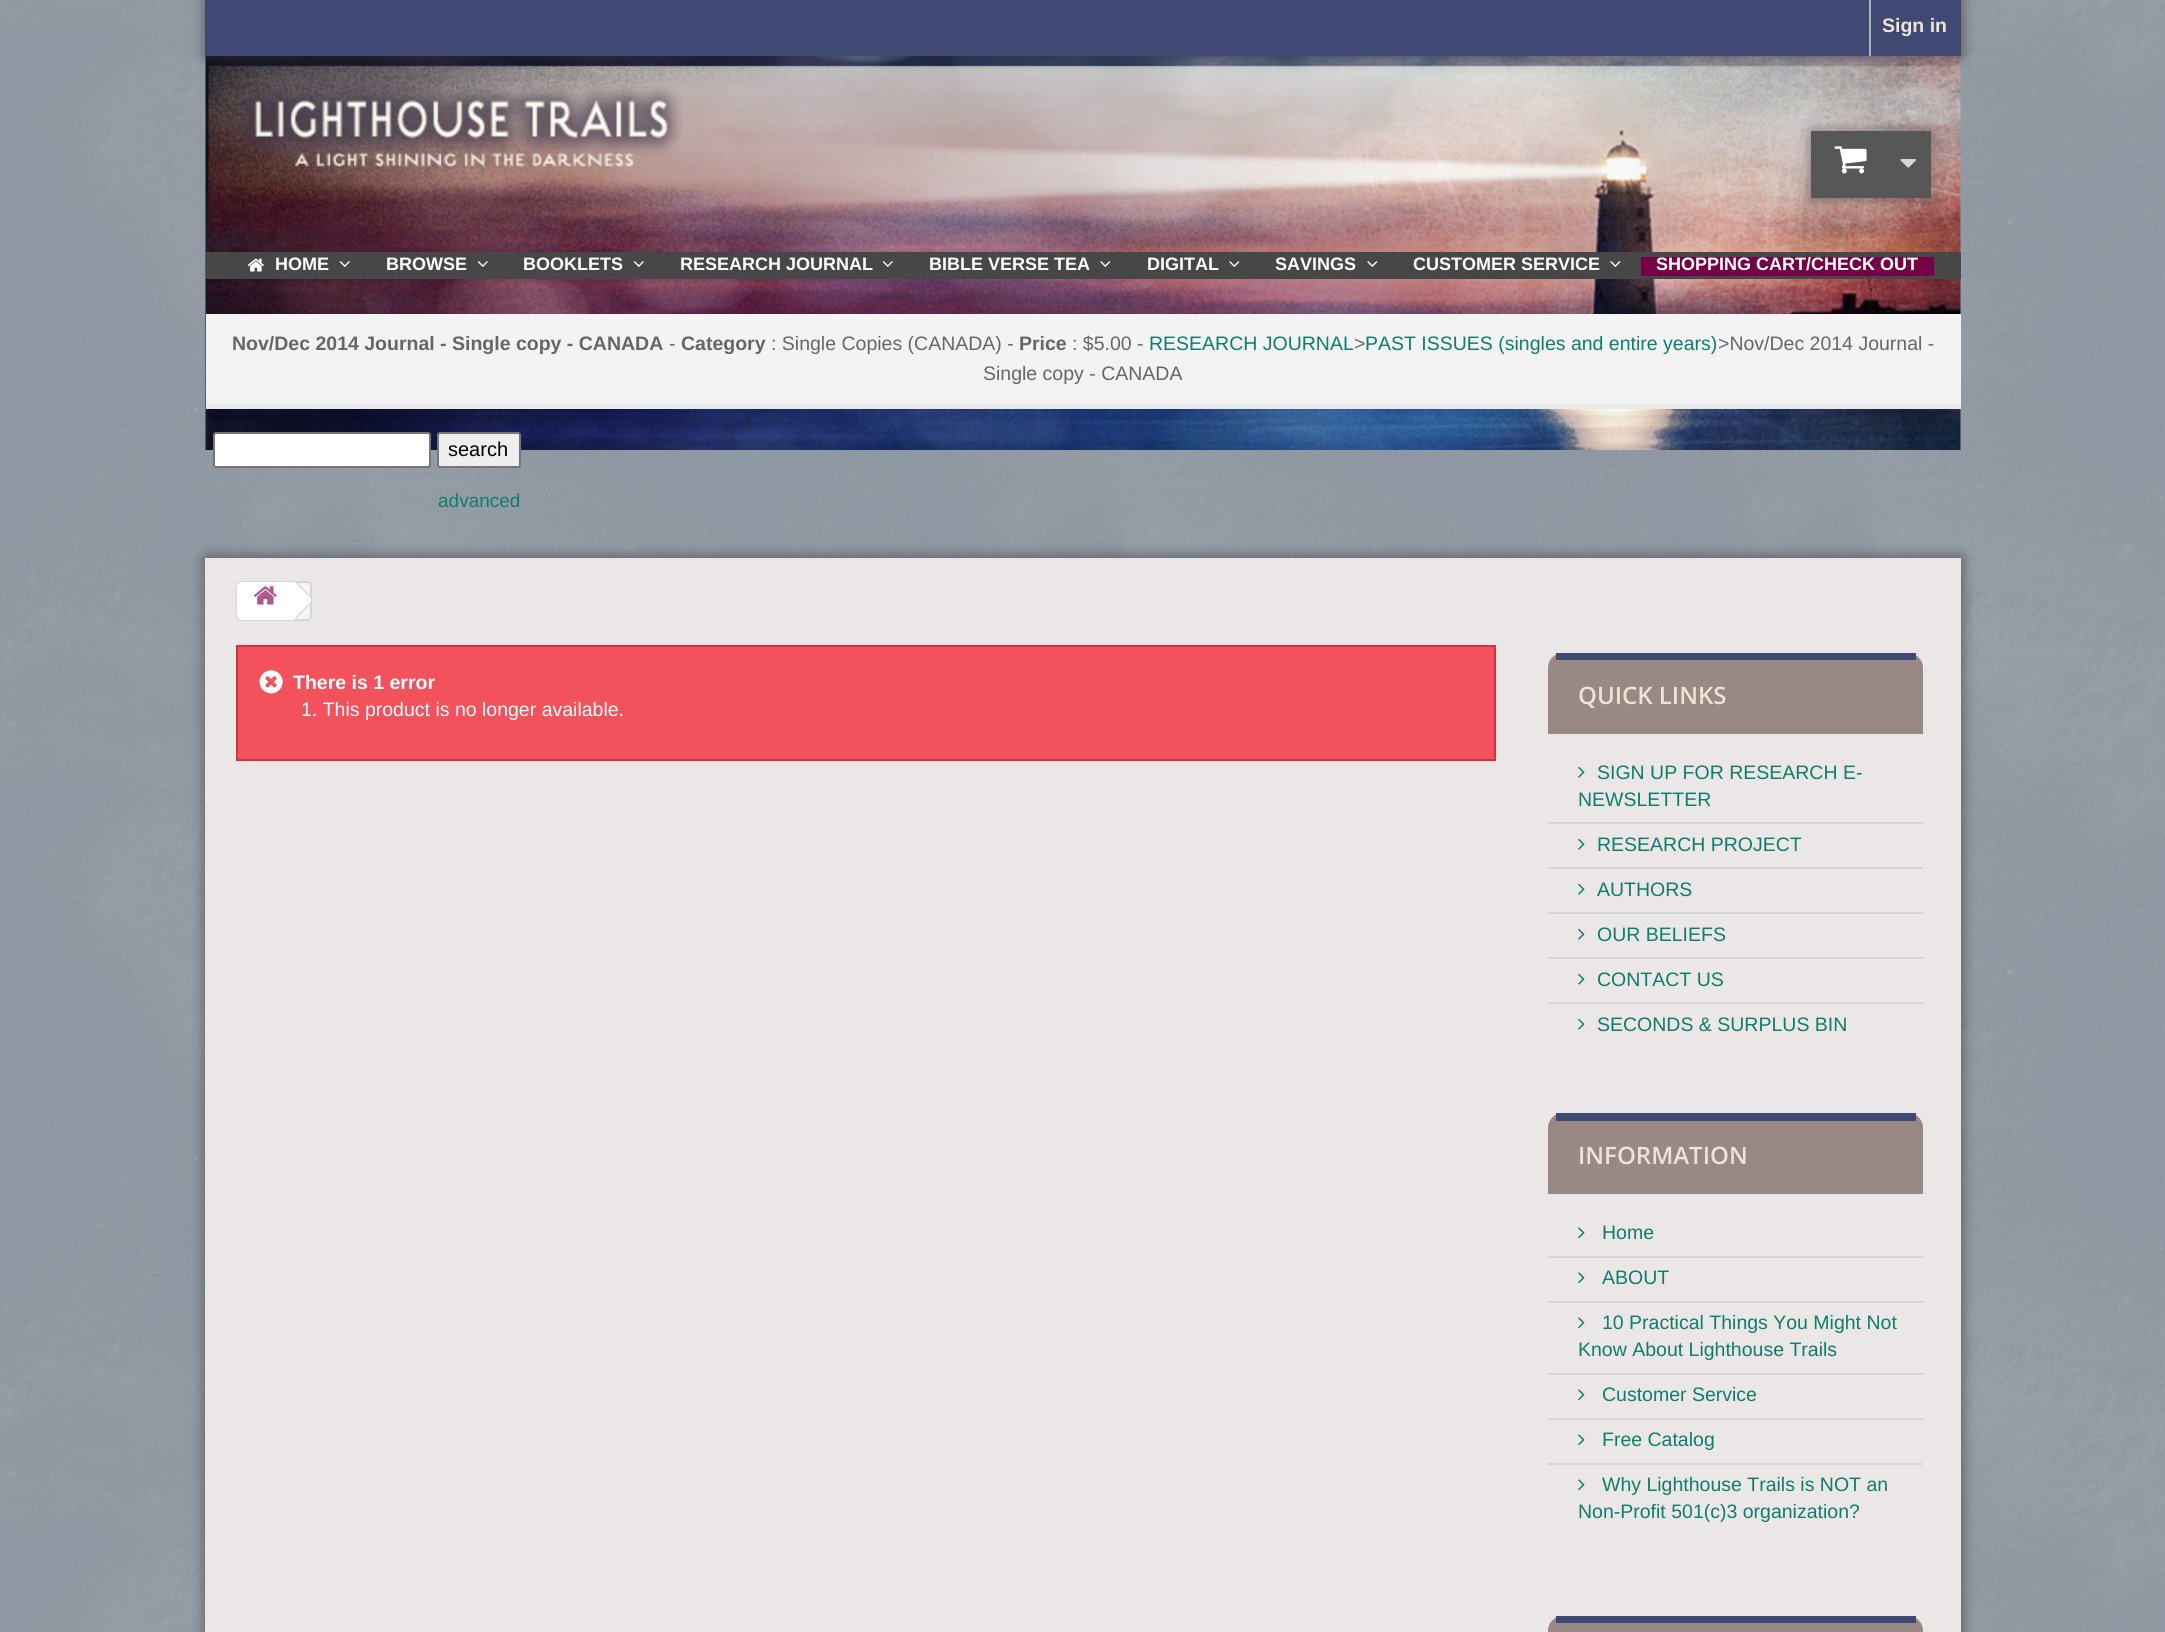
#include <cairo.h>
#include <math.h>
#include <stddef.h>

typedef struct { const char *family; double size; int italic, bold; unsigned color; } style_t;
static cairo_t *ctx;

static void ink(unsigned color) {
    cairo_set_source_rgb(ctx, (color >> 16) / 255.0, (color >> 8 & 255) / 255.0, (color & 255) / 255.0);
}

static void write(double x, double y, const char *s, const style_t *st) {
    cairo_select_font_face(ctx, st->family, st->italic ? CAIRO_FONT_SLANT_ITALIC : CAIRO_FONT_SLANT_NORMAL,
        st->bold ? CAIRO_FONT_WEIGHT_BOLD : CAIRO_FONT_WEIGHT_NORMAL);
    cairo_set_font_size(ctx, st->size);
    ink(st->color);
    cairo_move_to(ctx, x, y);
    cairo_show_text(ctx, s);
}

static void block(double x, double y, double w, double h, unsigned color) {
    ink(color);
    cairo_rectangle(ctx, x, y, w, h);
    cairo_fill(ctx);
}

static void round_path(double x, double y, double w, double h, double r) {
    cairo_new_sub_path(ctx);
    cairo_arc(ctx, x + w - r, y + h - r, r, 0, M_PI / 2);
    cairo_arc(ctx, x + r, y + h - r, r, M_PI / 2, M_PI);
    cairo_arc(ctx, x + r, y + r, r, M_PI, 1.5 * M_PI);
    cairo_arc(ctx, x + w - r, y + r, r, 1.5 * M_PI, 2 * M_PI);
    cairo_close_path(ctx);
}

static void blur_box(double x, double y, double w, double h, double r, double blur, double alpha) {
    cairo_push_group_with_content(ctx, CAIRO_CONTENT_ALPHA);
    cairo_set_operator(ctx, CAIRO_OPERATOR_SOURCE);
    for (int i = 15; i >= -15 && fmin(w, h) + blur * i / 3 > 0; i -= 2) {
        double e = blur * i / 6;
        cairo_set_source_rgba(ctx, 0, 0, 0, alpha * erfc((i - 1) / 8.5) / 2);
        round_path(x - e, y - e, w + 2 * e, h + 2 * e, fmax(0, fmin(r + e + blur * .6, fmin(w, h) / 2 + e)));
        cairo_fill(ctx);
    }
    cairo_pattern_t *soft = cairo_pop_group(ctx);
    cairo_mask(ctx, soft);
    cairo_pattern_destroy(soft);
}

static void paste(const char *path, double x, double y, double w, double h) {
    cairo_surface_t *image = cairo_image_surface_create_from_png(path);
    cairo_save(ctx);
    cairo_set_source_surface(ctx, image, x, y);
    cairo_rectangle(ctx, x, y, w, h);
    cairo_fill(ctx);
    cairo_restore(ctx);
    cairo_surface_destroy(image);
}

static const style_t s1 = {"Liberation Sans", 19.5, 0, 1, 0xece4d4};
static const style_t s2 = {"Liberation Sans", 18, 0, 1, 0xffffff};
static const style_t s3 = {"Liberation Sans", 19.5, 0, 1, 0x666666};
static const style_t s4 = {"Liberation Sans", 19.5, 0, 0, 0x666666};
static const style_t s5 = {"Liberation Sans", 19.5, 0, 0, 0x0e7d6e};
static const style_t s6 = {"Liberation Sans", 20, 0, 0, 0x000000};
static const style_t s7 = {"Liberation Sans", 19, 0, 0, 0x0e7d6e};
static const style_t s8 = {"Liberation Sans", 19.5, 0, 1, 0xffffff};
static const style_t s9 = {"Liberation Sans", 19.5, 0, 0, 0xffffff};
static const style_t s10 = {"Open Sans SemiBold", 24, 0, 0, 0xece4d4};

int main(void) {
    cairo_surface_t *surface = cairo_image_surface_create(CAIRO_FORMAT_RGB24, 2165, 1632);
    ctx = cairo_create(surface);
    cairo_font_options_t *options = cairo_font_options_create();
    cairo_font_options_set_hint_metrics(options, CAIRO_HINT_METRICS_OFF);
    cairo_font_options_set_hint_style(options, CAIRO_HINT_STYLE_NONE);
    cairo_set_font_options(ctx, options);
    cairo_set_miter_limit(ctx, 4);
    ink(0x8f99a3);
    cairo_paint(ctx);
    paste("pic1.png", 0, 0, 2165, 1632);
    paste("pic2.png", 205, 0, 1756, 450);
    ink(0x323232);
    blur_box(206, 0, 1755, 56, 0, 7.5, 0.75);
    block(206, 0, 1755, 56, 0x3f4973);
    block(1869, 0, 2, 56, 0xb0b0b0);
    write(1882, 32, "Sign in", &s1);
    paste("pic3.png", 240, 85, 443, 82);
    ink(0x323232);
    blur_box(1811, 131, 120, 67, 0, 7.5, 0.5);
    block(1811, 131, 120, 67, 0x575757);
    paste("pic4.png", 1834, 146, 33, 28);
    paste("pic5.png", 1900, 159, 16, 9);
    block(206, 252, 1755, 27, 0x474747);
    paste("pic6.png", 247, 258, 17, 14);
    write(275, 270, "HOME", &s2);
    paste("pic7.png", 339, 261, 11, 6);
    write(386, 270, "BROWSE", &s2);
    paste("pic7.png", 477, 261, 11, 6);
    write(523, 270, "BOOKLETS", &s2);
    paste("pic7.png", 633, 261, 11, 6);
    write(680, 270, "RESEARCH JOURNAL", &s2);
    paste("pic7.png", 882, 261, 11, 6);
    write(929, 270, "BIBLE VERSE TEA", &s2);
    paste("pic8.png", 1100, 261, 11, 6);
    write(1147, 270, "DIGITAL", &s2);
    paste("pic8.png", 1229, 261, 11, 6);
    write(1275, 270, "SAVINGS", &s2);
    paste("pic8.png", 1367, 261, 11, 6);
    write(1413, 270, "CUSTOMER SERVICE", &s2);
    paste("pic8.png", 1610, 261, 11, 6);
    block(1641, 257, 293, 19, 0x750047);
    write(1656, 270, "SHOPPING CART/CHECK OUT", &s2);
    block(206, 314, 1755, 90, 0xf3f3f3);
    block(206, 404, 1755, 5, 0xe9e9e9);
    write(232, 350, "Nov/Dec 2014 Journal - Single copy - CANADA", &s3);
    write(669, 350, "-", &s4);
    write(681, 350, "Category", &s3);
    write(771, 350, ": Single Copies (CANADA) -", &s4);
    write(1019, 350, "Price", &s3);
    write(1072, 350, ": $5.00 -", &s4);
    write(1149, 350, "RESEARCH JOURNAL", &s5);
    write(1354, 350, ">", &s4);
    write(1365, 350, "PAST ISSUES (singles and entire years)", &s5);
    write(1718, 350, ">Nov/Dec 2014 Journal -", &s4);
    write(983, 380, "Single copy - CANADA", &s4);
    ink(0xffffff);
    round_path(214, 433, 216, 34, 2);
    cairo_fill_preserve(ctx);
    ink(0x767676);
    cairo_stroke(ctx);
    ink(0xefefef);
    round_path(438, 433, 82, 34, 2);
    cairo_fill_preserve(ctx);
    ink(0x767676);
    cairo_stroke(ctx);
    write(448, 456, "search", &s6);
    write(438, 507, "advanced", &s7);
    ink(0x323232);
    blur_box(206, 558, 1755, 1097, 0, 7.5, 0.75);
    block(206, 558, 1755, 1074, 0x998984);
    cairo_set_source_rgba(ctx, 1, 1, 1, 0.8);
    cairo_rectangle(ctx, 205, 558, 1756, 1074);
    cairo_fill(ctx);
    ink(0xf5f5f5);
    round_path(237, 582, 74, 38, 4);
    cairo_fill_preserve(ctx);
    ink(0xd6d6d6);
    cairo_stroke(ctx);
    ink(0xffffff);
    cairo_new_path(ctx);
    cairo_move_to(ctx, 242, 582);
    cairo_line_to(ctx, 294, 582);
    cairo_line_to(ctx, 294, 620);
    cairo_line_to(ctx, 242, 620);
    cairo_curve_to(ctx, 239, 620, 237, 618, 237, 615);
    cairo_line_to(ctx, 237, 587);
    cairo_curve_to(ctx, 237, 584, 239, 582, 242, 582);
    cairo_close_path(ctx);
    cairo_fill(ctx);
    paste("pic9.png", 253, 586, 24, 19);
    cairo_new_path(ctx);
    cairo_move_to(ctx, 297.5, 583);
    cairo_line_to(ctx, 311, 596.5);
    cairo_line_to(ctx, 311, 603.5);
    cairo_line_to(ctx, 297.5, 617);
    cairo_curve_to(ctx, 296.5, 618, 294.5, 618, 293.5, 617);
    cairo_line_to(ctx, 278.5, 602);
    cairo_curve_to(ctx, 277.5, 601, 277.5, 599, 278.5, 598);
    cairo_line_to(ctx, 293.5, 583);
    cairo_curve_to(ctx, 294.5, 582, 296.5, 582, 297.5, 583);
    cairo_close_path(ctx);
    cairo_fill(ctx);
    ink(0xd6d6d6);
    cairo_new_path(ctx);
    cairo_move_to(ctx, 296.5, 582);
    cairo_line_to(ctx, 311, 596.5);
    cairo_line_to(ctx, 311, 598.5);
    cairo_line_to(ctx, 295.5, 583);
    cairo_close_path(ctx);
    cairo_move_to(ctx, 311, 601.5);
    cairo_line_to(ctx, 311, 603.5);
    cairo_line_to(ctx, 296.5, 618);
    cairo_line_to(ctx, 295.5, 617);
    cairo_close_path(ctx);
    cairo_fill(ctx);
    ink(0xf3515c);
    cairo_rectangle(ctx, 237, 646, 1258, 114);
    cairo_fill_preserve(ctx);
    ink(0xd4323d);
    cairo_stroke(ctx);
    paste("pic10.png", 259, 670, 24, 24);
    write(293, 689, "There is 1 error", &s8);
    write(301, 716, "1. This product is no longer available.", &s9);
    ink(0x998984);
    cairo_new_path(ctx);
    cairo_move_to(ctx, 1563, 653);
    cairo_line_to(ctx, 1908, 653);
    cairo_curve_to(ctx, 1916.5, 653, 1923, 659.5, 1923, 668);
    cairo_line_to(ctx, 1923, 734);
    cairo_line_to(ctx, 1548, 734);
    cairo_line_to(ctx, 1548, 668);
    cairo_curve_to(ctx, 1548, 659.5, 1554.5, 653, 1563, 653);
    cairo_close_path(ctx);
    cairo_fill(ctx);
    block(1556, 653, 360, 7, 0x3f4973);
    write(1578, 704, "QUICK LINKS", &s10);
    paste("pic11.png", 1578, 766, 7, 12);
    write(1597, 779, "SIGN UP FOR RESEARCH E-", &s5);
    write(1578, 806, "NEWSLETTER", &s5);
    block(1548, 822, 375, 2, 0xd6d6d6);
    paste("pic11.png", 1578, 838, 7, 12);
    write(1597, 851, "RESEARCH PROJECT", &s5);
    block(1548, 867, 375, 2, 0xd6d6d6);
    paste("pic11.png", 1578, 883, 7, 12);
    write(1597, 896, "AUTHORS", &s5);
    block(1548, 912, 375, 2, 0xd6d6d6);
    paste("pic11.png", 1578, 928, 7, 12);
    write(1597, 941, "OUR BELIEFS", &s5);
    block(1548, 957, 375, 2, 0xd6d6d6);
    paste("pic11.png", 1578, 973, 7, 12);
    write(1597, 986, "CONTACT US", &s5);
    block(1548, 1002, 375, 2, 0xd6d6d6);
    paste("pic11.png", 1578, 1018, 7, 12);
    write(1597, 1031, "SECONDS & SURPLUS BIN", &s5);
    ink(0x998984);
    cairo_new_path(ctx);
    cairo_move_to(ctx, 1563, 1113);
    cairo_line_to(ctx, 1908, 1113);
    cairo_curve_to(ctx, 1916.5, 1113, 1923, 1119.5, 1923, 1128);
    cairo_line_to(ctx, 1923, 1194);
    cairo_line_to(ctx, 1548, 1194);
    cairo_line_to(ctx, 1548, 1128);
    cairo_curve_to(ctx, 1548, 1119.5, 1554.5, 1113, 1563, 1113);
    cairo_close_path(ctx);
    cairo_fill(ctx);
    block(1556, 1113, 360, 8, 0x3f4973);
    write(1578, 1164, "INFORMATION", &s10);
    paste("pic12.png", 1578, 1227, 7, 12);
    write(1602, 1239, "Home", &s5);
    block(1548, 1256, 375, 2, 0xd6d6d6);
    paste("pic12.png", 1578, 1272, 7, 12);
    write(1602, 1284, "ABOUT", &s5);
    block(1548, 1301, 375, 2, 0xd6d6d6);
    paste("pic12.png", 1578, 1317, 7, 12);
    write(1602, 1329, "10 Practical Things You Might Not", &s5);
    write(1578, 1356, "Know About Lighthouse Trails", &s5);
    block(1548, 1373, 375, 2, 0xd6d6d6);
    paste("pic12.png", 1578, 1389, 7, 12);
    write(1602, 1401, "Customer Service", &s5);
    block(1548, 1418, 375, 2, 0xd6d6d6);
    paste("pic12.png", 1578, 1434, 7, 12);
    write(1602, 1446, "Free Catalog", &s5);
    block(1548, 1463, 375, 2, 0xd6d6d6);
    paste("pic12.png", 1578, 1479, 7, 12);
    write(1602, 1491, "Why Lighthouse Trails is NOT an", &s5);
    write(1578, 1518, "Non-Profit 501(c)3 organization?", &s5);
    ink(0x998984);
    cairo_new_path(ctx);
    cairo_move_to(ctx, 1563, 1616);
    cairo_line_to(ctx, 1908, 1616);
    cairo_curve_to(ctx, 1916.5, 1616, 1923, 1622.5, 1923, 1631);
    cairo_line_to(ctx, 1923, 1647);
    cairo_line_to(ctx, 1548, 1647);
    cairo_line_to(ctx, 1548, 1631);
    cairo_curve_to(ctx, 1548, 1622.5, 1554.5, 1616, 1563, 1616);
    cairo_close_path(ctx);
    cairo_fill(ctx);
    block(1556, 1616, 360, 7, 0x3f4973);
    cairo_surface_write_to_png(surface, "screenshot.png");
    cairo_font_options_destroy(options);
    cairo_destroy(ctx);
    cairo_surface_destroy(surface);
    return 0;
}
